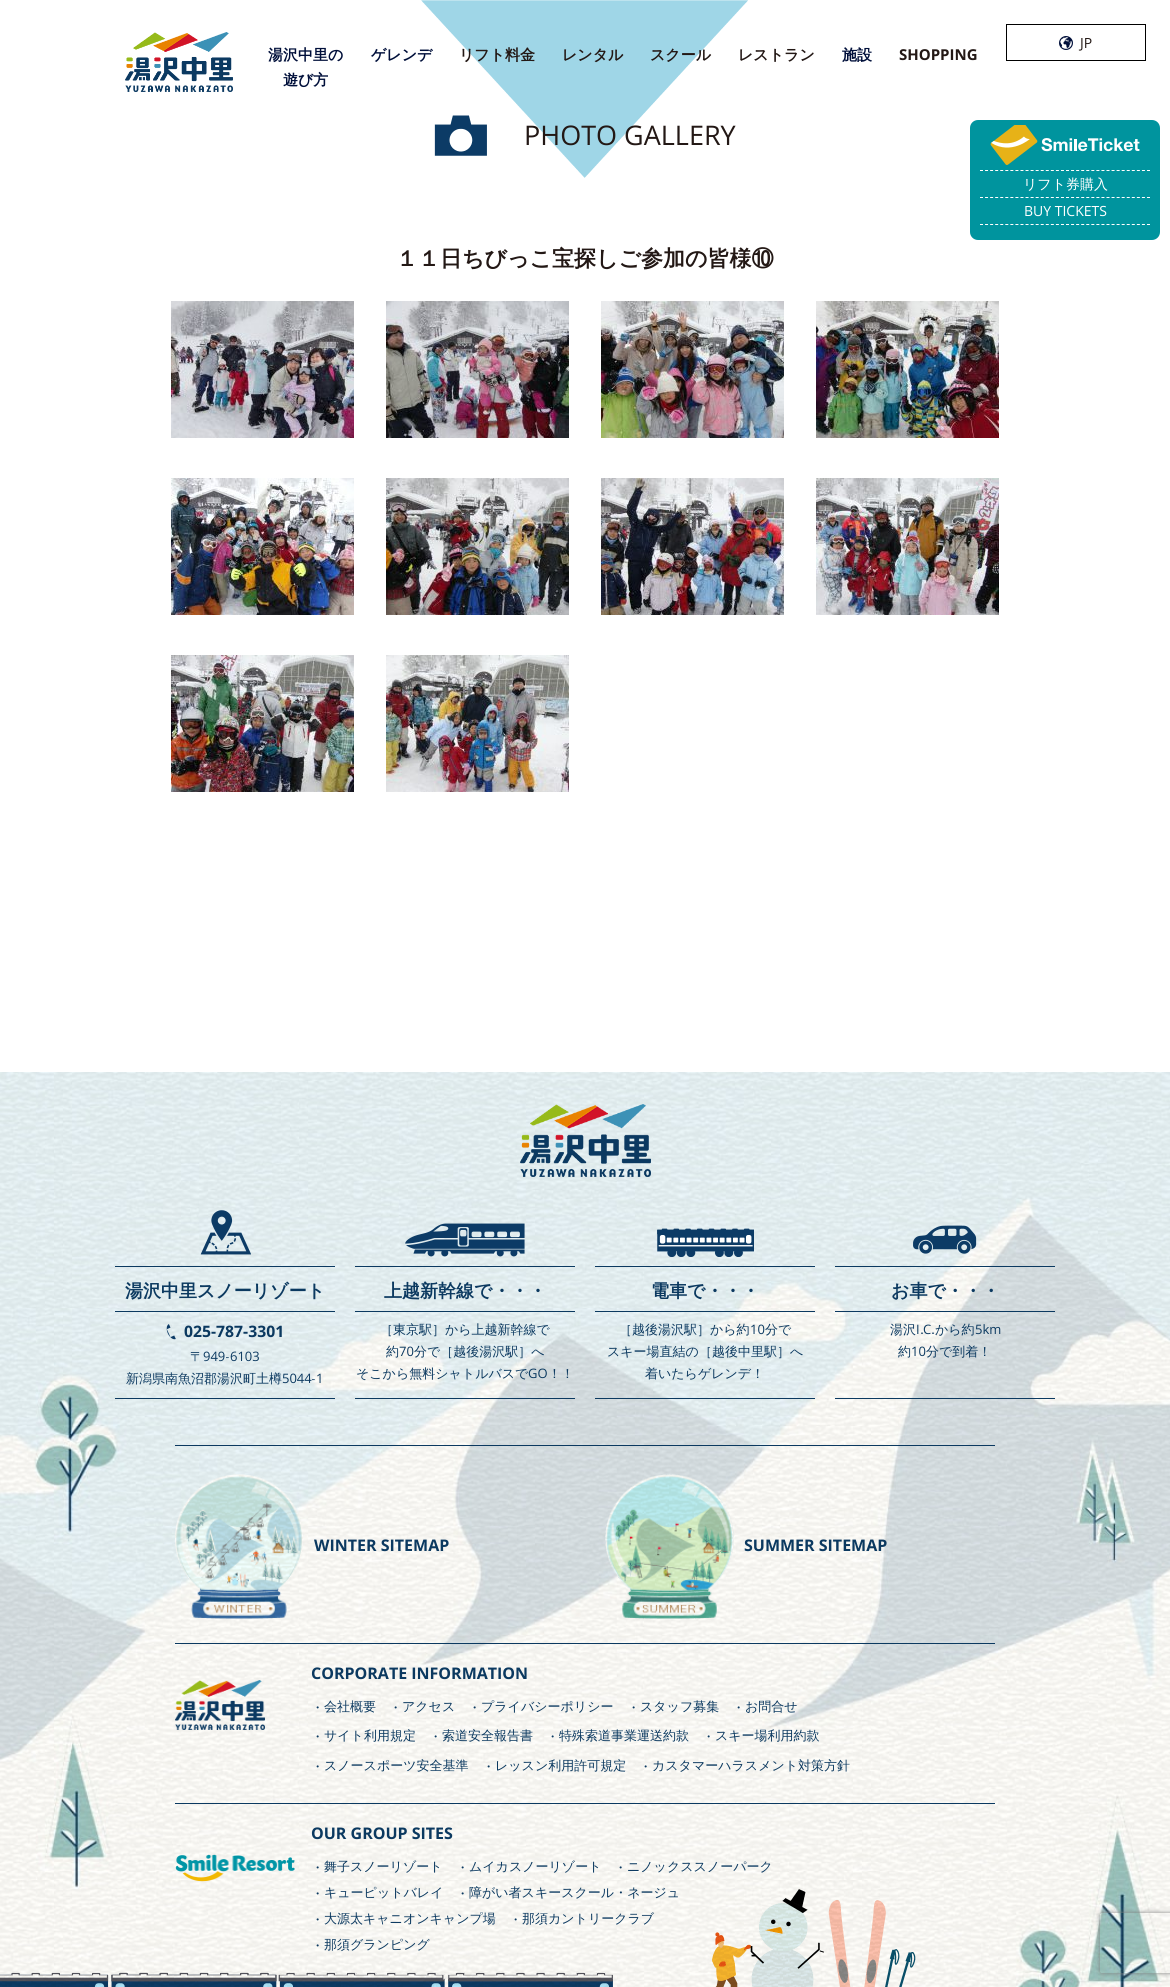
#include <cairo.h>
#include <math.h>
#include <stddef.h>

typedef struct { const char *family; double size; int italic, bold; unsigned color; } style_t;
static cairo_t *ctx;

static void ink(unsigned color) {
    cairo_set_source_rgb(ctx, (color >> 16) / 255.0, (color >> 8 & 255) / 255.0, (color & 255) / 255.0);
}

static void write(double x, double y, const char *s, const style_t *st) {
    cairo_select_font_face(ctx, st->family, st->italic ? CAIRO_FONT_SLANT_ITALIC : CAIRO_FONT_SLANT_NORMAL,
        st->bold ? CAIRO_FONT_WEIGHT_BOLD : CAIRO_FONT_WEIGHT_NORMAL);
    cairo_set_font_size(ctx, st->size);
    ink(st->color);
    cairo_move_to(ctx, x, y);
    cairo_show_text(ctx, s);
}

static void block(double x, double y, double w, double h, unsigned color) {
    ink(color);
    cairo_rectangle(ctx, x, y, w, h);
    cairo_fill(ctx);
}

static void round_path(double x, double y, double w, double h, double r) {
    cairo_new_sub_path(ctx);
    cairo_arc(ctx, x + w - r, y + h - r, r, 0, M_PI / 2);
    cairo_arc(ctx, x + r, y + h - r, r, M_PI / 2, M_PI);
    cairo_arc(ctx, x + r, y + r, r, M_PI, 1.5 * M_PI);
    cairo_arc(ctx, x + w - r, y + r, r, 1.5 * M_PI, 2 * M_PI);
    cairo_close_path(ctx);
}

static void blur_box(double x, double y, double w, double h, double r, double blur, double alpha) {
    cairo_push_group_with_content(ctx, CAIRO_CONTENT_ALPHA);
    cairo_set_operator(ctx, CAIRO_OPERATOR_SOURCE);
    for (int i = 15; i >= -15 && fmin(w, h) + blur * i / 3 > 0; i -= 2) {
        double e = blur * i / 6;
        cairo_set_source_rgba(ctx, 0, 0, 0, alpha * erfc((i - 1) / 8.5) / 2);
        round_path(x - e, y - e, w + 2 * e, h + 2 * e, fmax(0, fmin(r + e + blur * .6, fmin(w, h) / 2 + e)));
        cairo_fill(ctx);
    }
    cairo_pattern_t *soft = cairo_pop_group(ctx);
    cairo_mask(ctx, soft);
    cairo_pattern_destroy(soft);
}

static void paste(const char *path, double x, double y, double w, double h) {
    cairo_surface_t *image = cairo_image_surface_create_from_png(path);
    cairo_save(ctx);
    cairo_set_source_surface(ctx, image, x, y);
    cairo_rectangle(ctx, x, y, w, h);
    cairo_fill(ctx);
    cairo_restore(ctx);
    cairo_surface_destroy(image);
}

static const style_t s1 = {"Open Sans", 14, 0, 0, 0x231815};
static const style_t s2 = {"WenQuanYi Zen Hei", 15, 0, 1, 0x000f3a};
static const style_t s3 = {"WenQuanYi Zen Hei", 15, 0, 1, 0x231815};
static const style_t s4 = {"Open Sans", 15, 0, 1, 0x231815};
static const style_t s5 = {"Open Sans", 27, 0, 0, 0x231815};
static const style_t s6 = {"WenQuanYi Zen Hei", 22, 0, 1, 0x231815};
static const style_t s7 = {"WenQuanYi Zen Hei Medium", 14, 0, 0, 0xffffff};
static const style_t s8 = {"Open Sans", 14, 0, 0, 0xffffff};
static const style_t s9 = {"WenQuanYi Zen Hei", 18, 0, 1, 0x0b3960};
static const style_t s10 = {"Open Sans", 15.75, 0, 1, 0x0b3960};
static const style_t s11 = {"WenQuanYi Zen Hei Medium", 13, 0, 0, 0x0b3960};
static const style_t s12 = {"Open Sans", 13, 0, 0, 0x0b3960};
static const style_t s13 = {"Open Sans", 16, 0, 1, 0x0b3960};

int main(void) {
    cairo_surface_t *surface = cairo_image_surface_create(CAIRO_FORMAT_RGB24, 1170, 1987);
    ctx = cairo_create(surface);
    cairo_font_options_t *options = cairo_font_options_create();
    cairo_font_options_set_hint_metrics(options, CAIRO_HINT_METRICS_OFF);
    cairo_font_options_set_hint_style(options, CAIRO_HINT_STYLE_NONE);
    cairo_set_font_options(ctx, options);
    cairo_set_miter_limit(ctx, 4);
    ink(0xffffff);
    cairo_paint(ctx);
    paste("pic1.png", 421, 0, 327, 178);
    paste("pic2.png", 125, 32, 108, 60);
    cairo_rectangle(ctx, 1006.5, 24.5, 139, 36);
    ink(0x000000);
    cairo_set_line_width(ctx, 1);
    cairo_stroke(ctx);
    paste("pic3.png", 1059, 36, 14, 14);
    write(1080, 48, "JP", &s1);
    write(268, 60, "湯沢中里の", &s2);
    write(283, 85, "遊び方", &s2);
    write(371, 60, "ゲレンデ", &s2);
    write(459, 60, "リフト料金", &s3);
    write(562, 60, "レンタル", &s3);
    write(650, 60, "スクール", &s3);
    write(738, 60, "レストラン", &s3);
    write(842, 60, "施設", &s2);
    write(899, 60, "SHOPPING", &s4);
    paste("pic4.png", 434, 115, 53, 41);
    write(524, 145, "PHOTO GALLERY", &s5);
    write(396, 266, "１１日ちびっこ宝探しご参加の皆様⑩", &s6);
    paste("pic5.png", 171, 301, 183, 137);
    paste("pic6.png", 386, 301, 183, 137);
    paste("pic7.png", 601, 301, 183, 137);
    paste("pic8.png", 816, 301, 183, 137);
    paste("pic9.png", 171, 478, 183, 137);
    paste("pic10.png", 386, 478, 183, 137);
    paste("pic11.png", 601, 478, 183, 137);
    paste("pic12.png", 816, 478, 183, 137);
    paste("pic13.png", 171, 655, 183, 137);
    paste("pic14.png", 386, 655, 183, 137);
    ink(0x00949e);
    round_path(970, 120, 190, 120, 8);
    cairo_fill(ctx);
    paste("pic15.png", 990, 125, 150, 40);
    cairo_new_path(ctx);
    cairo_move_to(ctx, 980, 224.5);
    cairo_line_to(ctx, 1150, 224.5);
    ink(0xffffff);
    cairo_set_dash(ctx, (double[]){3, 2.06}, 2, 0);
    cairo_stroke(ctx);
    cairo_new_path(ctx);
    cairo_move_to(ctx, 980, 170.5);
    cairo_line_to(ctx, 1150, 170.5);
    cairo_stroke(ctx);
    write(1023, 189, "リフト券購入", &s7);
    cairo_new_path(ctx);
    cairo_move_to(ctx, 980, 197.5);
    cairo_line_to(ctx, 1150, 197.5);
    cairo_stroke(ctx);
    write(1024, 216, "BUY TICKETS", &s8);
    paste("pic16.png", 0, 1072, 1170, 915);
    paste("pic17.png", 520, 1104, 131, 73);
    paste("pic18.png", 200, 1210, 51, 45);
    block(115, 1398, 220, 1, 0x0b3960);
    block(115, 1266, 220, 1, 0x0b3960);
    block(115, 1311, 220, 1, 0x0b3960);
    write(125, 1297, "湯沢中里スノーリゾート", &s9);
    paste("pic19.png", 166, 1324, 10, 16);
    write(184, 1337, "025-787-3301", &s10);
    write(190, 1361, "〒", &s11);
    write(203, 1361, "949", &s12);
    write(226, 1361, "-", &s11);
    write(230, 1361, "6103", &s12);
    write(126, 1383, "新潟県南魚沼郡湯沢町土樽", &s11);
    write(282, 1383, "5044", &s12);
    write(312, 1383, "-", &s11);
    write(316, 1383, "1", &s12);
    paste("pic20.png", 405, 1223, 120, 34);
    block(355, 1398, 220, 1, 0x0b3960);
    block(355, 1266, 220, 1, 0x0b3960);
    block(355, 1311, 220, 1, 0x0b3960);
    write(384, 1297, "上越新幹線で・・・", &s9);
    write(380, 1334, "［東京駅］から上越新幹線で", &s11);
    write(386, 1356, "約", &s11);
    write(399, 1356, "70", &s12);
    write(414, 1356, "分で［越後湯沢駅］へ", &s11);
    write(356, 1378, "そこから無料シャトルバスで", &s11);
    write(528, 1378, "GO", &s12);
    write(548, 1378, "！！", &s11);
    paste("pic21.png", 657, 1228, 97, 29);
    block(595, 1398, 220, 1, 0x0b3960);
    block(595, 1266, 220, 1, 0x0b3960);
    block(595, 1311, 220, 1, 0x0b3960);
    write(651, 1297, "電車で・・・", &s9);
    write(619, 1334, "［越後湯沢駅］から約", &s11);
    write(750, 1334, "10", &s12);
    write(765, 1334, "分で", &s11);
    write(607, 1356, "スキー場直結の［越後中里駅］へ", &s11);
    write(645, 1378, "着いたらゲレンデ！", &s11);
    paste("pic22.png", 913, 1225, 64, 29);
    block(835, 1398, 220, 1, 0x0b3960);
    block(835, 1266, 220, 1, 0x0b3960);
    block(835, 1311, 220, 1, 0x0b3960);
    write(891, 1297, "お車で・・・", &s9);
    write(890, 1334, "湯沢 .", &s11);
    write(931, 1334, ".から約", &s11);
    write(916, 1334, "I", &s12);
    write(923, 1334, "C", &s12);
    write(975, 1334, "5km", &s12);
    write(898, 1356, "約", &s11);
    write(911, 1356, "10", &s12);
    write(926, 1356, "分で到着！", &s11);
    block(175, 1445, 820, 1, 0x0b3960);
    paste("pic23.png", 175, 1474, 128, 145);
    write(314, 1551, "WINTER SITEMAP", &s13);
    paste("pic24.png", 605, 1474, 129, 145);
    write(744, 1551, "SUMMER SITEMAP", &s13);
    block(175, 1643, 820, 1, 0x0b3960);
    block(175, 1803, 820, 1, 0x0b3960);
    paste("pic25.png", 175, 1680, 90, 50);
    write(311, 1679, "CORPORATE INFORMATION", &s13);
    write(311, 1712, "・", &s11);
    write(324, 1711, "会社概要", &s11);
    write(389, 1712, "・", &s11);
    write(402, 1711, "アクセス", &s11);
    write(468, 1712, "・", &s11);
    write(481, 1711, "プライバシーポリシー", &s11);
    write(627, 1712, "・", &s11);
    write(640, 1711, "スタッフ募集", &s11);
    write(732, 1712, "・", &s11);
    write(745, 1711, "お問合せ", &s11);
    write(311, 1741, "・", &s11);
    write(324, 1740, "サイト利用規定", &s11);
    write(429, 1741, "・", &s11);
    write(442, 1740, "索道安全報告書", &s11);
    write(546, 1741, "・", &s11);
    write(559, 1740, "特殊索道事業運送約款", &s11);
    write(702, 1741, "・", &s11);
    write(715, 1740, "スキー場利用約款", &s11);
    write(311, 1771, "・", &s11);
    write(324, 1770, "スノースポーツ安全基準", &s11);
    write(482, 1771, "・", &s11);
    write(495, 1770, "レッスン利用許可規定", &s11);
    write(639, 1771, "・", &s11);
    write(652, 1770, "カスタマーハラスメント対策方針", &s11);
    paste("pic26.png", 175, 1854, 120, 28);
    write(311, 1839, "OUR GROUP SITES", &s13);
    write(311, 1872, "・", &s11);
    write(324, 1871, "舞子スノーリゾート", &s11);
    write(456, 1872, "・", &s11);
    write(469, 1871, "ムイカスノーリゾート", &s11);
    write(614, 1872, "・", &s11);
    write(627, 1871, "ニノックススノーパーク", &s11);
    write(311, 1898, "・", &s11);
    write(324, 1897, "キューピットバレイ", &s11);
    write(456, 1898, "・", &s11);
    write(469, 1897, "障がい者スキースクール・ネージュ", &s11);
    write(311, 1924, "・", &s11);
    write(324, 1923, "大源太キャニオンキャンプ場", &s11);
    write(509, 1924, "・", &s11);
    write(522, 1923, "那須カントリークラブ", &s11);
    write(311, 1950, "・", &s11);
    write(324, 1949, "那須グランピング", &s11);
    paste("pic27.png", 0, 1972, 613, 15);
    paste("pic28.png", 712, 1889, 204, 98);
    cairo_save(ctx);
    cairo_set_fill_rule(ctx, CAIRO_FILL_RULE_EVEN_ODD);
    cairo_new_path(ctx);
    cairo_move_to(ctx, 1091, 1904);
    cairo_line_to(ctx, 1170, 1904);
    cairo_line_to(ctx, 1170, 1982);
    cairo_line_to(ctx, 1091, 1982);
    cairo_close_path(ctx);
    cairo_move_to(ctx, 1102, 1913);
    cairo_line_to(ctx, 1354, 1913);
    cairo_curve_to(ctx, 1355, 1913, 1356, 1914, 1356, 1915);
    cairo_line_to(ctx, 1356, 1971);
    cairo_curve_to(ctx, 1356, 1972, 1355, 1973, 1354, 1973);
    cairo_line_to(ctx, 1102, 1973);
    cairo_curve_to(ctx, 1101, 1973, 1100, 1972, 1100, 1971);
    cairo_line_to(ctx, 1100, 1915);
    cairo_curve_to(ctx, 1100, 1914, 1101, 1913, 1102, 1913);
    cairo_close_path(ctx);
    cairo_clip(ctx);
    ink(0x808080);
    blur_box(1100, 1913, 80, 60, 2, 2.5, 1);
    cairo_restore(ctx);
    cairo_surface_write_to_png(surface, "screenshot.png");
    cairo_font_options_destroy(options);
    cairo_destroy(ctx);
    cairo_surface_destroy(surface);
    return 0;
}
